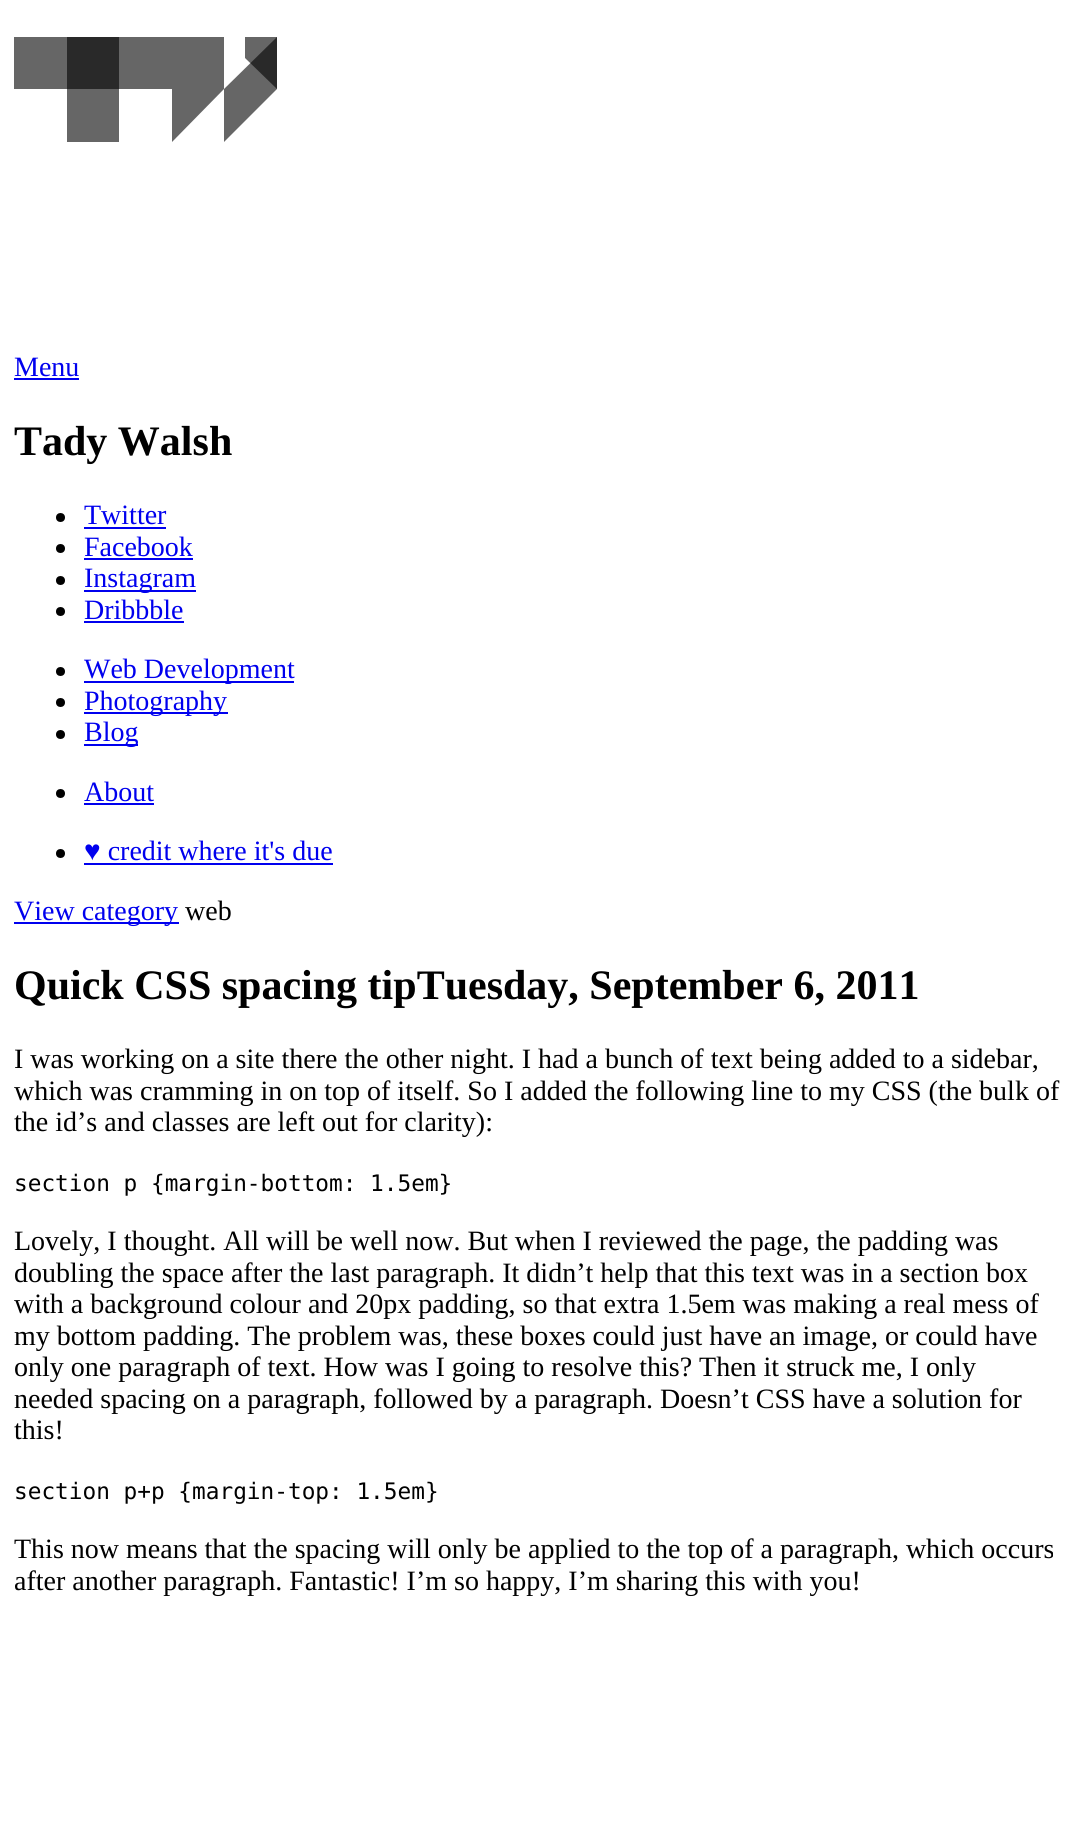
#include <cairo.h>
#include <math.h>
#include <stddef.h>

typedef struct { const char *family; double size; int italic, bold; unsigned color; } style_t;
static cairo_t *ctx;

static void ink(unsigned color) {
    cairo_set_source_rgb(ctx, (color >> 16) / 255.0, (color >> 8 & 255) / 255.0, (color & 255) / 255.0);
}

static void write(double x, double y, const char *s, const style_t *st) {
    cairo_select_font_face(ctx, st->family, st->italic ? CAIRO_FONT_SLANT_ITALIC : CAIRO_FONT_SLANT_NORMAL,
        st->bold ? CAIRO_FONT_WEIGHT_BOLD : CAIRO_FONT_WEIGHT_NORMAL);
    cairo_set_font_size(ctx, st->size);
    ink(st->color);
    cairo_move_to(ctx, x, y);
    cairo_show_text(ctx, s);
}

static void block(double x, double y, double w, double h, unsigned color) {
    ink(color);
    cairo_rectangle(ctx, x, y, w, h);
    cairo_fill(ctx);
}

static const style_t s1 = {"Liberation Serif", 28, 0, 0, 0x0000ee};
static const style_t s2 = {"Liberation Serif", 42, 0, 1, 0x000000};
static const style_t s3 = {"Liberation Serif", 28, 0, 0, 0x000000};
static const style_t s4 = {"DejaVu Sans Mono", 22.75, 0, 0, 0x000000};

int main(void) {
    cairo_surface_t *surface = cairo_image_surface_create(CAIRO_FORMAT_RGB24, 1074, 1834);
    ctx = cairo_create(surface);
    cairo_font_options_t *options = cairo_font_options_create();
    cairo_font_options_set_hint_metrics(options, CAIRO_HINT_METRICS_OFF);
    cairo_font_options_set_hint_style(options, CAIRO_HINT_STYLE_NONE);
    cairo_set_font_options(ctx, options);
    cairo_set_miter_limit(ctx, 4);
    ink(0xffffff);
    cairo_paint(ctx);
    block(67, 37, 52, 105, 0x666666);
    cairo_set_source_rgba(ctx, 0, 0, 0, 0.6);
    cairo_new_path(ctx);
    cairo_move_to(ctx, 14, 37);
    cairo_line_to(ctx, 224, 37);
    cairo_line_to(ctx, 224, 89);
    cairo_line_to(ctx, 172, 142);
    cairo_line_to(ctx, 172, 89);
    cairo_line_to(ctx, 14, 89);
    cairo_fill(ctx);
    ink(0x666666);
    cairo_new_path(ctx);
    cairo_move_to(ctx, 224, 89);
    cairo_line_to(ctx, 277, 37);
    cairo_line_to(ctx, 277, 89);
    cairo_line_to(ctx, 224, 142);
    cairo_fill(ctx);
    cairo_set_source_rgba(ctx, 0, 0, 0, 0.6);
    cairo_new_path(ctx);
    cairo_move_to(ctx, 245, 37);
    cairo_line_to(ctx, 277, 37);
    cairo_line_to(ctx, 277, 89);
    cairo_line_to(ctx, 245, 58);
    cairo_fill(ctx);
    write(14, 376, "Menu", &s1);
    block(14, 378, 65, 2, 0x0000ee);
    write(14, 455, "Tady Walsh", &s2);
    cairo_new_path(ctx);
    cairo_arc(ctx, 60.5, 517.5, 4.5, 0, 2 * M_PI);
    cairo_fill(ctx);
    write(84, 524, "Twitter", &s1);
    block(84, 527, 82, 2, 0x0000ee);
    ink(0x000000);
    cairo_new_path(ctx);
    cairo_arc(ctx, 60.5, 548.5, 4.5, 0, 2 * M_PI);
    cairo_fill(ctx);
    write(84, 556, "Facebook", &s1);
    block(84, 558, 109, 2, 0x0000ee);
    ink(0x000000);
    cairo_new_path(ctx);
    cairo_arc(ctx, 60.5, 580.5, 4.5, 0, 2 * M_PI);
    cairo_fill(ctx);
    block(84, 590, 112, 2, 0x0000ee);
    write(84, 587, "Instagram", &s1);
    ink(0x000000);
    cairo_new_path(ctx);
    cairo_arc(ctx, 60.5, 611.5, 4.5, 0, 2 * M_PI);
    cairo_fill(ctx);
    write(84, 619, "Dribbble", &s1);
    block(84, 621, 100, 2, 0x0000ee);
    ink(0x000000);
    cairo_new_path(ctx);
    cairo_arc(ctx, 60.5, 671.5, 4.5, 0, 2 * M_PI);
    cairo_fill(ctx);
    block(84, 681, 210, 2, 0x0000ee);
    write(84, 678, "Web Development", &s1);
    ink(0x000000);
    cairo_new_path(ctx);
    cairo_arc(ctx, 60.5, 702.5, 4.5, 0, 2 * M_PI);
    cairo_fill(ctx);
    block(84, 712, 144, 2, 0x0000ee);
    write(84, 710, "Photography", &s1);
    ink(0x000000);
    cairo_new_path(ctx);
    cairo_arc(ctx, 60.5, 734.5, 4.5, 0, 2 * M_PI);
    cairo_fill(ctx);
    block(84, 744, 54, 2, 0x0000ee);
    write(84, 741, "Blog", &s1);
    ink(0x000000);
    cairo_new_path(ctx);
    cairo_arc(ctx, 60.5, 793.5, 4.5, 0, 2 * M_PI);
    cairo_fill(ctx);
    write(84, 801, "About", &s1);
    block(84, 803, 70, 2, 0x0000ee);
    ink(0x000000);
    cairo_new_path(ctx);
    cairo_arc(ctx, 60.5, 853.5, 4.5, 0, 2 * M_PI);
    cairo_fill(ctx);
    write(84, 860, "♥ credit where it's due", &s1);
    block(84, 863, 249, 2, 0x0000ee);
    block(14, 922, 165, 2, 0x0000ee);
    write(14, 920, "View category", &s1);
    write(185, 920, "web", &s3);
    write(14, 999, "Quick CSS spacing tipTuesday, September 6, 2011", &s2);
    write(14, 1068, "I was working on a site there the other night. I had a bunch of text being added to a sidebar,", &s3);
    write(14, 1100, "which was cramming in on top of itself. So I added the following line to my CSS (the bulk of", &s3);
    write(14, 1131, "the id’s and classes are left out for clarity):", &s3);
    write(14, 1191, "section p {margin-bottom: 1.5em}", &s4);
    write(14, 1250, "Lovely, I thought. All will be well now. But when I reviewed the page, the padding was", &s3);
    write(14, 1282, "doubling the space after the last paragraph. It didn’t help that this text was in a section box", &s3);
    write(14, 1313, "with a background colour and 20px padding, so that extra 1.5em was making a real mess of", &s3);
    write(14, 1345, "my bottom padding. The problem was, these boxes could just have an image, or could have", &s3);
    write(14, 1376, "only one paragraph of text. How was I going to resolve this? Then it struck me, I only", &s3);
    write(14, 1408, "needed spacing on a paragraph, followed by a paragraph. Doesn’t CSS have a solution for", &s3);
    write(14, 1439, "this!", &s3);
    write(14, 1499, "section p+p {margin-top: 1.5em}", &s4);
    write(14, 1558, "This now means that the spacing will only be applied to the top of a paragraph, which occurs", &s3);
    write(14, 1590, "after another paragraph. Fantastic! I’m so happy, I’m sharing this with you!", &s3);
    cairo_surface_write_to_png(surface, "screenshot.png");
    cairo_font_options_destroy(options);
    cairo_destroy(ctx);
    cairo_surface_destroy(surface);
    return 0;
}
